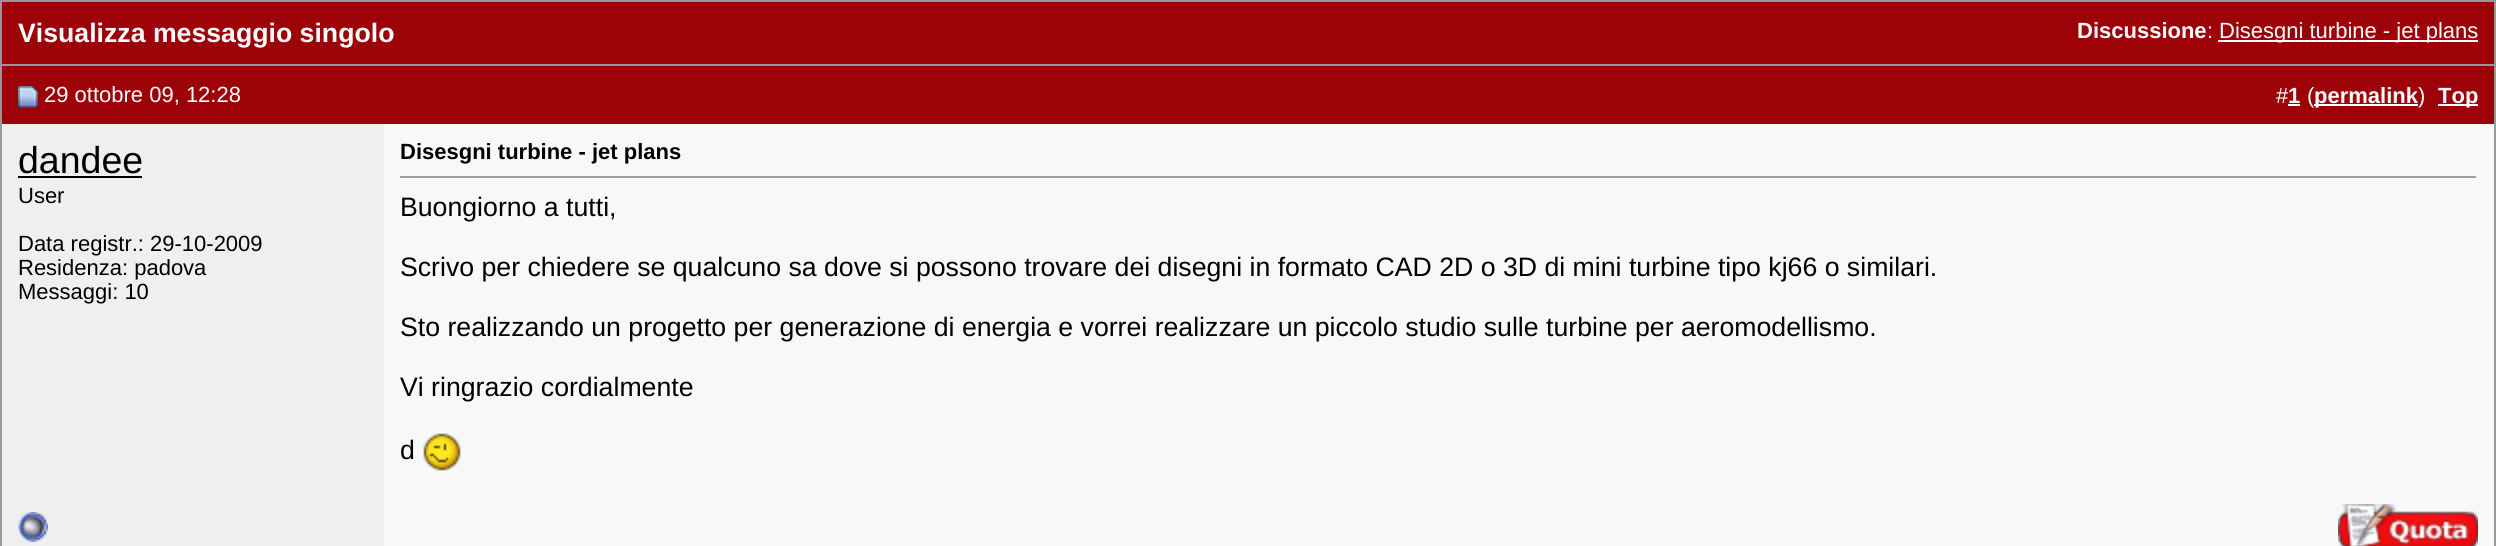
#include <cairo.h>
#include <math.h>
#include <stddef.h>

typedef struct { const char *family; double size; int italic, bold; unsigned color; } style_t;
static cairo_t *ctx;

static void ink(unsigned color) {
    cairo_set_source_rgb(ctx, (color >> 16) / 255.0, (color >> 8 & 255) / 255.0, (color & 255) / 255.0);
}

static void write(double x, double y, const char *s, const style_t *st) {
    cairo_select_font_face(ctx, st->family, st->italic ? CAIRO_FONT_SLANT_ITALIC : CAIRO_FONT_SLANT_NORMAL,
        st->bold ? CAIRO_FONT_WEIGHT_BOLD : CAIRO_FONT_WEIGHT_NORMAL);
    cairo_set_font_size(ctx, st->size);
    ink(st->color);
    cairo_move_to(ctx, x, y);
    cairo_show_text(ctx, s);
}

static void block(double x, double y, double w, double h, unsigned color) {
    ink(color);
    cairo_rectangle(ctx, x, y, w, h);
    cairo_fill(ctx);
}

static void paste(const char *path, double x, double y, double w, double h) {
    cairo_surface_t *image = cairo_image_surface_create_from_png(path);
    cairo_save(ctx);
    cairo_set_source_surface(ctx, image, x, y);
    cairo_rectangle(ctx, x, y, w, h);
    cairo_fill(ctx);
    cairo_restore(ctx);
    cairo_surface_destroy(image);
}

static const style_t s1 = {"Liberation Sans", 26.67, 0, 1, 0xffffff};
static const style_t s2 = {"Liberation Sans", 22, 0, 1, 0xffffff};
static const style_t s3 = {"Liberation Sans", 22, 0, 0, 0xffffff};
static const style_t s4 = {"Liberation Sans", 37.5, 0, 0, 0x000000};
static const style_t s5 = {"Liberation Sans", 22, 0, 0, 0x000000};
static const style_t s6 = {"Liberation Sans", 22, 0, 1, 0x000000};
static const style_t s7 = {"Liberation Sans", 26.67, 0, 0, 0x000000};

int main(void) {
    cairo_surface_t *surface = cairo_image_surface_create(CAIRO_FORMAT_RGB24, 2496, 546);
    ctx = cairo_create(surface);
    cairo_font_options_t *options = cairo_font_options_create();
    cairo_font_options_set_hint_metrics(options, CAIRO_HINT_METRICS_OFF);
    cairo_font_options_set_hint_style(options, CAIRO_HINT_STYLE_NONE);
    cairo_set_font_options(ctx, options);
    cairo_set_miter_limit(ctx, 4);
    ink(0x999999);
    cairo_paint(ctx);
    block(2, 2, 2492, 62, 0x9c0207);
    write(18, 42, "Visualizza messaggio singolo", &s1);
    write(2077, 38, "Discussione", &s2);
    write(2207, 38, ":", &s3);
    block(2218, 40, 260, 2, 0xffffff);
    write(2219, 38, "Disesgni turbine - jet plans", &s3);
    block(2, 66, 2492, 58, 0x9c0207);
    paste("pic1.png", 18, 86, 20, 22);
    write(44, 102, "29 ottobre 09, 12:28", &s3);
    write(2276, 103, "#", &s3);
    write(2288, 103, "1", &s2);
    block(2288, 104, 12, 2, 0xffffff);
    write(2307, 103, "(", &s3);
    block(2314, 104, 104, 2, 0xffffff);
    write(2314, 103, "permalink", &s2);
    write(2418, 103, ")", &s3);
    block(2438, 104, 40, 2, 0xffffff);
    write(2438, 103, "Top", &s2);
    block(2, 124, 382, 422, 0xefefef);
    write(18, 173, "dandee", &s4);
    block(18, 176, 124, 2, 0x000000);
    write(18, 203, "User", &s5);
    write(18, 251, "Data registr.: 29-10-2009", &s5);
    write(18, 275, "Residenza: padova", &s5);
    write(18, 299, "Messaggi: 10", &s5);
    block(384, 124, 2110, 422, 0xf8f8f8);
    write(400, 159, "Disesgni turbine - jet plans", &s6);
    block(400, 176, 2078, 2, 0x9f9f9f);
    block(2476, 176, 2, 2, 0xeeeeee);
    write(400, 216, "Buongiorno a tutti,", &s7);
    write(400, 276, "Scrivo per chiedere se qualcuno sa dove si possono trovare dei disegni in formato CAD 2D o 3D di mini turbine tipo kj66 o similari.", &s7);
    write(400, 336, "Sto realizzando un progetto per generazione di energia e vorrei realizzare un piccolo studio sulle turbine per aeromodellismo.", &s7);
    write(400, 396, "Vi ringrazio cordialmente", &s7);
    write(400, 459, "d", &s7);
    paste("pic2.png", 423, 433, 38, 38);
    paste("pic3.png", 18, 512, 30, 30);
    paste("pic4.png", 2338, 504, 140, 42);
    cairo_surface_write_to_png(surface, "screenshot.png");
    cairo_font_options_destroy(options);
    cairo_destroy(ctx);
    cairo_surface_destroy(surface);
    return 0;
}
